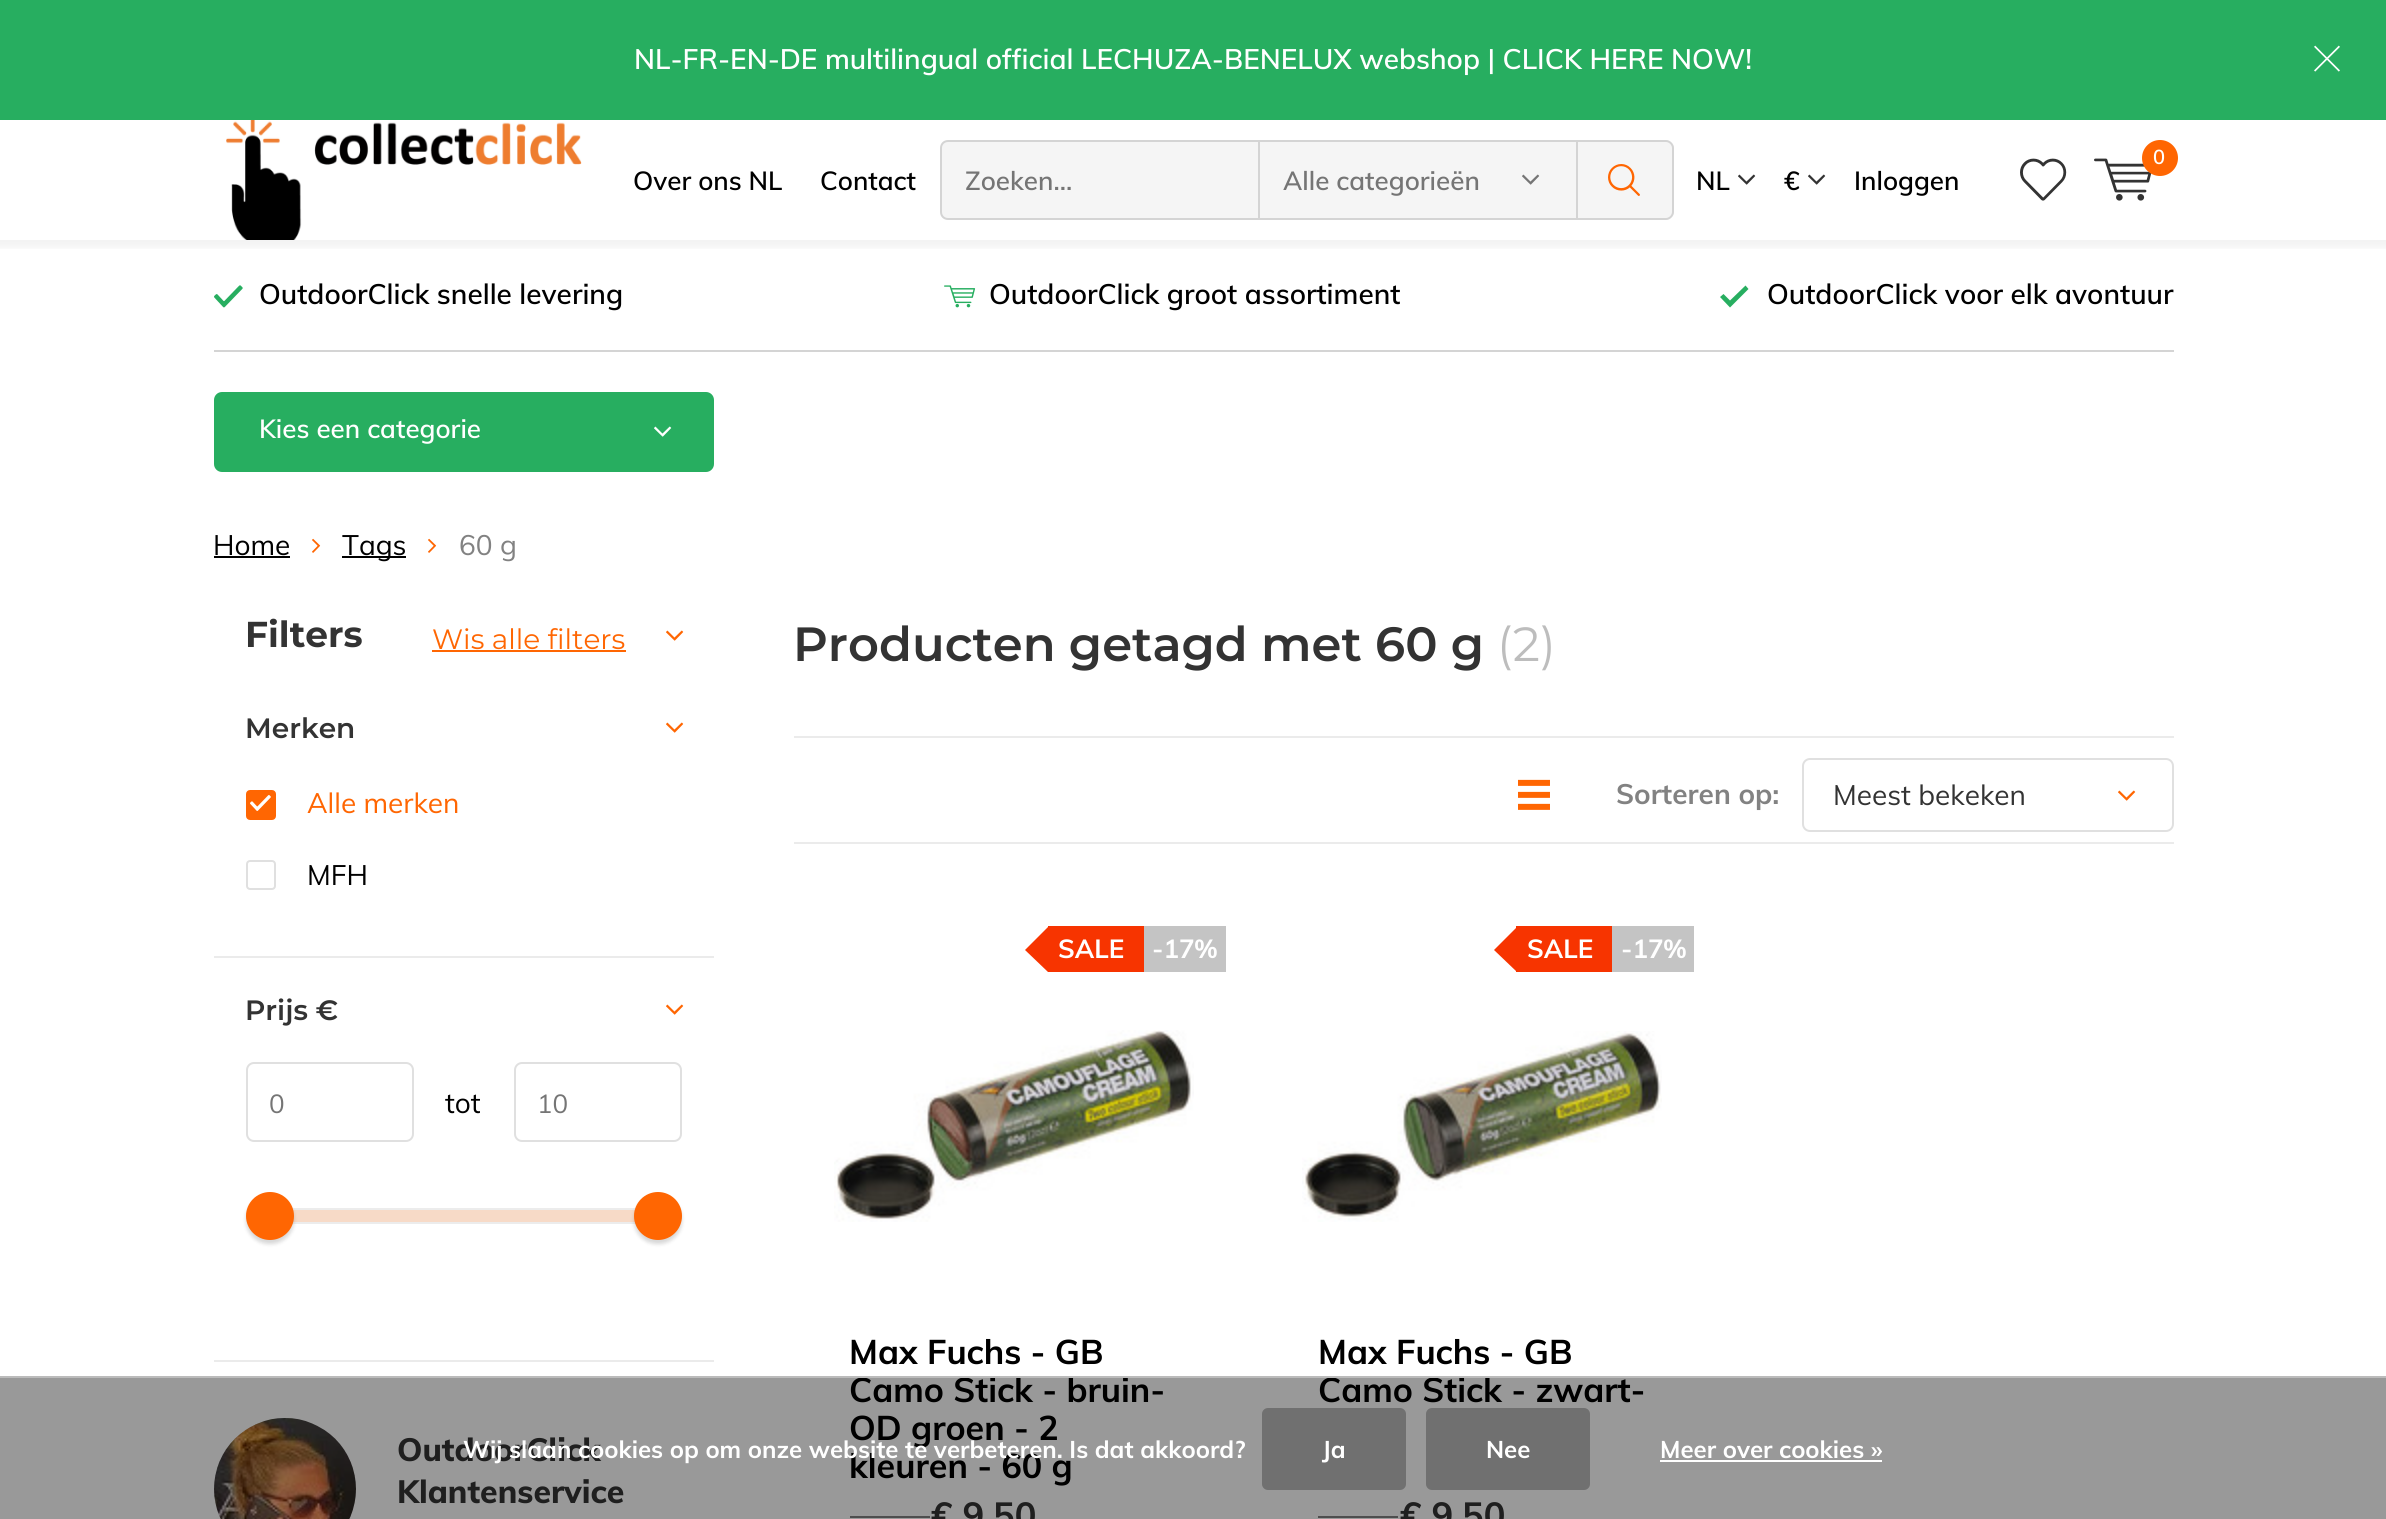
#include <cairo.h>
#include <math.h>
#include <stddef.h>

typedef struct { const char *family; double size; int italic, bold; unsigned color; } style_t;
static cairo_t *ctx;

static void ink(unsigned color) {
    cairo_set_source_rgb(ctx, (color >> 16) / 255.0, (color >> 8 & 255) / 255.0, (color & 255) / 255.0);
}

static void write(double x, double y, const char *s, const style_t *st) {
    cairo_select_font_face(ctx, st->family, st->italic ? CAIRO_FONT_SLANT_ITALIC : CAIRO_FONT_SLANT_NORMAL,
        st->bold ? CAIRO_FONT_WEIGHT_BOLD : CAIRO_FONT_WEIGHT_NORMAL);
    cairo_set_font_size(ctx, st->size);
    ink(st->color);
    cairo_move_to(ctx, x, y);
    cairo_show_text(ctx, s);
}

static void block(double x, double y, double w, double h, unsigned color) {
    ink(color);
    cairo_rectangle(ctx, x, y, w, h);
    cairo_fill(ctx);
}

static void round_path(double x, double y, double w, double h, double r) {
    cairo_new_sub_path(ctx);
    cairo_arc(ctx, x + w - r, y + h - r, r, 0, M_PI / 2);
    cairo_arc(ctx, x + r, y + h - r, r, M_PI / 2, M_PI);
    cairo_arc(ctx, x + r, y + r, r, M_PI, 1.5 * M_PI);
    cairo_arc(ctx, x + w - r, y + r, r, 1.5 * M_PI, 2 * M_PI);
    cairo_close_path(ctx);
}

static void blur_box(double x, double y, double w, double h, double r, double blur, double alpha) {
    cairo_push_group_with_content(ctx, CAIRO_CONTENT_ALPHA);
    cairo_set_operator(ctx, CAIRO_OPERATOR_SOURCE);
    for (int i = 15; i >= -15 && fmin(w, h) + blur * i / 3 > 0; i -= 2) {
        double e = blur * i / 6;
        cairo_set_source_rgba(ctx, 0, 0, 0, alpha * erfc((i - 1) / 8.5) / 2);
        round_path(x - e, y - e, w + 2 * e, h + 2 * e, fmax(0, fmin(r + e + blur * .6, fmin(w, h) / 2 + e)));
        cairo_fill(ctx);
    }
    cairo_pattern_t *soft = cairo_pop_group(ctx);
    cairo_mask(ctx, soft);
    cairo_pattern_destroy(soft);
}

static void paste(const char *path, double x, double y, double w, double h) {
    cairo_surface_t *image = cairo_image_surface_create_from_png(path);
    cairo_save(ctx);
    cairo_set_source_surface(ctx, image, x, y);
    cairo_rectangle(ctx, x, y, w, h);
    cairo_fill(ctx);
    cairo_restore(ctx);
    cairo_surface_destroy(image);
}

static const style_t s1 = {"Muli SemiBold", 28, 0, 0, 0xffffff};
static const style_t s2 = {"Muli SemiBold", 26, 0, 0, 0x000000};
static const style_t s3 = {"Muli SemiBold", 26, 0, 0, 0x757575};
static const style_t s4 = {"Muli SemiBold", 20, 0, 0, 0xffffff};
static const style_t s5 = {"Muli SemiBold", 28, 0, 0, 0x000000};
static const style_t s6 = {"Muli SemiBold", 26, 0, 0, 0xffffff};
static const style_t s7 = {"Muli", 28, 0, 0, 0x000000};
static const style_t s8 = {"Muli", 28, 0, 0, 0x828282};
static const style_t s9 = {"Montserrat", 36, 0, 1, 0x333333};
static const style_t s10 = {"Montserrat", 28, 0, 0, 0xff6602};
static const style_t s11 = {"Montserrat SemiBold", 28, 0, 0, 0x333333};
static const style_t s12 = {"Muli", 28, 0, 0, 0xff6602};
static const style_t s13 = {"Muli", 26, 0, 0, 0x757575};
static const style_t s14 = {"Muli ExtraBold", 32, 0, 0, 0x1f1f1f};
static const style_t s15 = {"Montserrat SemiBold", 48, 0, 0, 0x333333};
static const style_t s16 = {"Montserrat", 48, 0, 0, 0xbdbdbd};
static const style_t s17 = {"Muli", 28, 0, 1, 0x828282};
static const style_t s18 = {"Muli", 28, 0, 0, 0x333333};
static const style_t s19 = {"Muli", 26, 0, 1, 0xffffff};
static const style_t s20 = {"Muli", 34, 0, 1, 0x000000};
static const style_t s21 = {"Muli", 36, 0, 1, 0x1f1f1f};
static const style_t s22 = {"Muli", 24, 0, 1, 0xffffff};

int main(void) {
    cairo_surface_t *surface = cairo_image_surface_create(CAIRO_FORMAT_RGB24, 2386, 1519);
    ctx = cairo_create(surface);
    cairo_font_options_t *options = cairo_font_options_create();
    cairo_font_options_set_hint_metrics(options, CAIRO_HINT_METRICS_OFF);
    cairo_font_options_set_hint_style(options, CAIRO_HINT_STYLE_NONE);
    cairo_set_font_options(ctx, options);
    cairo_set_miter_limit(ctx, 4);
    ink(0xffffff);
    cairo_paint(ctx);
    block(0, 1378, 2386, 141, 0x999999);
    block(0, 0, 2386, 120, 0x27ae60);
    write(634, 69, "NL-FR-EN-DE multilingual official LECHUZA-BENELUX webshop | CLICK HERE NOW!", &s1);
    paste("pic1.png", 2314, 45, 26, 27);
    cairo_save(ctx);
    cairo_rectangle(ctx, 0, 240, 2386, 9);
    cairo_clip(ctx);
    ink(0x000000);
    blur_box(-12, 128, 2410, 120, 0, 4, 0.05);
    cairo_restore(ctx);
    paste("pic2.png", 226, 120, 356, 120);
    write(633, 190, "Over ons NL", &s2);
    write(820, 190, "Contact", &s2);
    ink(0xf5f5f5);
    cairo_rectangle(ctx, 1259, 141, 318, 78);
    cairo_fill_preserve(ctx);
    ink(0xd4d4d4);
    cairo_stroke(ctx);
    ink(0xf5f5f5);
    cairo_new_path(ctx);
    cairo_move_to(ctx, 948, 141);
    cairo_line_to(ctx, 1259, 141);
    cairo_line_to(ctx, 1259, 219);
    cairo_line_to(ctx, 948, 219);
    cairo_curve_to(ctx, 944, 219, 941, 216, 941, 212);
    cairo_line_to(ctx, 941, 148);
    cairo_curve_to(ctx, 941, 144, 944, 141, 948, 141);
    cairo_close_path(ctx);
    cairo_fill_preserve(ctx);
    ink(0xd4d4d4);
    cairo_stroke(ctx);
    write(965, 190, "Zoeken...", &s3);
    write(1283, 190, "Alle categorieën", &s3);
    paste("pic3.png", 1522, 174, 18, 11);
    ink(0xf5f5f5);
    cairo_new_path(ctx);
    cairo_move_to(ctx, 1578, 140);
    cairo_line_to(ctx, 1666, 140);
    cairo_curve_to(ctx, 1670.5, 140, 1674, 143.5, 1674, 148);
    cairo_line_to(ctx, 1674, 212);
    cairo_curve_to(ctx, 1674, 216.5, 1670.5, 220, 1666, 220);
    cairo_line_to(ctx, 1578, 220);
    cairo_close_path(ctx);
    cairo_fill(ctx);
    ink(0xd4d4d4);
    cairo_set_fill_rule(ctx, CAIRO_FILL_RULE_EVEN_ODD);
    cairo_new_path(ctx);
    cairo_move_to(ctx, 1578, 140);
    cairo_line_to(ctx, 1666, 140);
    cairo_curve_to(ctx, 1670, 140, 1674, 144, 1674, 148);
    cairo_line_to(ctx, 1674, 212);
    cairo_curve_to(ctx, 1674, 216, 1670, 220, 1666, 220);
    cairo_line_to(ctx, 1578, 220);
    cairo_close_path(ctx);
    cairo_move_to(ctx, 1578, 142);
    cairo_line_to(ctx, 1666, 142);
    cairo_curve_to(ctx, 1669, 142, 1672, 145, 1672, 148);
    cairo_line_to(ctx, 1672, 212);
    cairo_curve_to(ctx, 1672, 215, 1669, 218, 1666, 218);
    cairo_line_to(ctx, 1578, 218);
    cairo_close_path(ctx);
    cairo_fill(ctx);
    paste("pic4.png", 1608, 164, 32, 32);
    write(1696, 190, "NL", &s2);
    paste("pic5.png", 1738, 174, 18, 11);
    write(1784, 190, "€", &s2);
    paste("pic5.png", 1808, 174, 18, 11);
    write(1854, 190, "Inloggen", &s2);
    paste("pic6.png", 2020, 158, 47, 43);
    paste("pic7.png", 2094, 158, 58, 43);
    ink(0xff6602);
    cairo_arc(ctx, 2160, 158, 18, 0, 2 * M_PI);
    cairo_fill(ctx);
    write(2153, 164, "0", &s4);
    block(214, 350, 1960, 2, 0xd4d4d4);
    paste("pic8.png", 214, 285, 29, 23);
    write(259, 304, "OutdoorClick snelle levering", &s5);
    paste("pic9.png", 944, 285, 32, 23);
    write(989, 304, "OutdoorClick groot assortiment", &s5);
    ink(0x27ae60);
    cairo_set_fill_rule(ctx, CAIRO_FILL_RULE_WINDING);
    cairo_new_path(ctx);
    cairo_move_to(ctx, 1745.5, 285.5);
    cairo_line_to(ctx, 1730, 300.5);
    cairo_line_to(ctx, 1723.5, 294);
    cairo_line_to(ctx, 1720, 297);
    cairo_line_to(ctx, 1730, 307.5);
    cairo_line_to(ctx, 1748.5, 289);
    cairo_close_path(ctx);
    cairo_fill(ctx);
    write(1767, 304, "OutdoorClick voor elk avontuur", &s5);
    ink(0x27ae60);
    round_path(214, 392, 500, 80, 8);
    cairo_fill(ctx);
    write(259, 438, "Kies een categorie", &s6);
    paste("pic10.png", 654, 426, 18, 11);
    write(213, 555, "Home", &s7);
    block(214, 556, 76, 2, 0x000000);
    paste("pic11.png", 312, 538, 9, 15);
    block(342, 556, 64, 2, 0x000000);
    write(342, 555, "Tags", &s7);
    paste("pic11.png", 428, 538, 9, 15);
    write(459, 555, "60 g", &s8);
    block(214, 1360, 500, 2, 0xebebeb);
    write(245, 647, "Filters", &s9);
    write(432, 649, "Wis alle filters", &s10);
    block(432, 650, 194, 2, 0xff6602);
    paste("pic12.png", 666, 630, 18, 11);
    write(245, 738, "Merken", &s11);
    paste("pic12.png", 666, 722, 18, 11);
    ink(0xff6602);
    round_path(247, 791, 28, 28, 3);
    cairo_fill_preserve(ctx);
    cairo_stroke(ctx);
    paste("pic13.png", 250, 795, 21, 16);
    write(307, 813, "Alle merken", &s12);
    round_path(247, 861, 28, 28, 3);
    ink(0xe0e0e0);
    cairo_stroke(ctx);
    write(307, 885, "MFH", &s7);
    block(214, 956, 500, 2, 0xebebeb);
    write(245, 1020, "Prijs €", &s11);
    paste("pic12.png", 666, 1004, 18, 11);
    round_path(247, 1063, 166, 78, 7);
    ink(0xe0e0e0);
    cairo_stroke(ctx);
    write(269, 1113, "0", &s13);
    write(445, 1113, "tot", &s7);
    round_path(515, 1063, 166, 78, 7);
    ink(0xe0e0e0);
    cairo_stroke(ctx);
    write(537, 1113, "10", &s13);
    ink(0xf5f5f5);
    round_path(247, 1209, 434, 14, 7);
    cairo_fill_preserve(ctx);
    ink(0xececec);
    cairo_stroke(ctx);
    cairo_set_source_rgba(ctx, 1, 0.4, 0.008, 0.19);
    cairo_rectangle(ctx, 293, 1210, 342, 12);
    cairo_fill(ctx);
    cairo_rectangle(ctx, 271, 1209, 386, 14);
    ink(0xececec);
    cairo_stroke(ctx);
    ink(0x000000);
    blur_box(246, 1196, 48, 48, 24, 2, 0.16);
    ink(0xff6602);
    cairo_arc(ctx, 270, 1216, 24, 0, 2 * M_PI);
    cairo_fill(ctx);
    ink(0x000000);
    blur_box(634, 1196, 48, 48, 24, 2, 0.16);
    ink(0xff6602);
    cairo_arc(ctx, 658, 1216, 24, 0, 2 * M_PI);
    cairo_fill(ctx);
    paste("pic14.png", 214, 1418, 142, 101);
    write(397, 1461, "OutdoorClick", &s14);
    write(397, 1503, "Klantenservice", &s14);
    write(793, 661, "Producten getagd met 60 g", &s15);
    write(1497, 661, "(2)", &s16);
    block(794, 736, 1380, 2, 0xebebeb);
    block(794, 842, 1380, 2, 0xebebeb);
    paste("pic15.png", 1518, 779, 32, 31);
    write(1616, 804, "Sorteren op:", &s17);
    paste("pic12.png", 2118, 790, 18, 11);
    round_path(1803, 759, 370, 72, 7);
    ink(0xe0e0e0);
    cairo_stroke(ctx);
    write(1833, 805, "Meest bekeken", &s18);
    block(1048, 926, 96, 46, 0xf73400);
    cairo_new_path(ctx);
    cairo_move_to(ctx, 1025, 950);
    cairo_line_to(ctx, 1048, 927);
    cairo_line_to(ctx, 1071, 950);
    cairo_line_to(ctx, 1048, 972);
    cairo_close_path(ctx);
    cairo_fill(ctx);
    write(1058, 958, "SALE", &s19);
    block(1144, 926, 82, 46, 0xc4c4c4);
    write(1152, 958, "-17%", &s19);
    paste("pic16.png", 834, 1030, 360, 192);
    write(849, 1364, "Max Fuchs - GB", &s20);
    write(849, 1402, "Camo Stick - bruin-", &s20);
    write(849, 1440, "OD groen - 2", &s20);
    write(849, 1478, "kleuren - 60 g", &s20);
    block(850, 1516, 80, 2, 0x4e4e4e);
    write(931, 1528, "€ 9,50", &s21);
    block(1516, 926, 96, 46, 0xf73400);
    cairo_new_path(ctx);
    cairo_move_to(ctx, 1494, 950);
    cairo_line_to(ctx, 1517, 927);
    cairo_line_to(ctx, 1539, 950);
    cairo_line_to(ctx, 1517, 972);
    cairo_close_path(ctx);
    cairo_fill(ctx);
    write(1527, 958, "SALE", &s19);
    block(1612, 926, 82, 46, 0xc4c4c4);
    write(1621, 958, "-17%", &s19);
    paste("pic17.png", 1302, 1031, 360, 191);
    write(1318, 1364, "Max Fuchs - GB", &s20);
    write(1318, 1402, "Camo Stick - zwart-", &s20);
    block(1318, 1516, 80, 2, 0x4e4e4e);
    write(1400, 1528, "€ 9,50", &s21);
    block(0, 1376, 2386, 2, 0xbbbbbb);
    write(463, 1458, "Wij slaan cookies op om onze website te verbeteren. Is dat akkoord?", &s22);
    ink(0x707070);
    round_path(1262, 1408, 144, 82, 6);
    cairo_fill(ctx);
    write(1322, 1458, "Ja", &s22);
    ink(0x707070);
    round_path(1426, 1408, 164, 82, 6);
    cairo_fill(ctx);
    write(1486, 1458, "Nee", &s22);
    write(1660, 1458, "Meer over cookies »", &s22);
    block(1660, 1460, 222, 2, 0xffffff);
    cairo_surface_write_to_png(surface, "screenshot.png");
    cairo_font_options_destroy(options);
    cairo_destroy(ctx);
    cairo_surface_destroy(surface);
    return 0;
}
